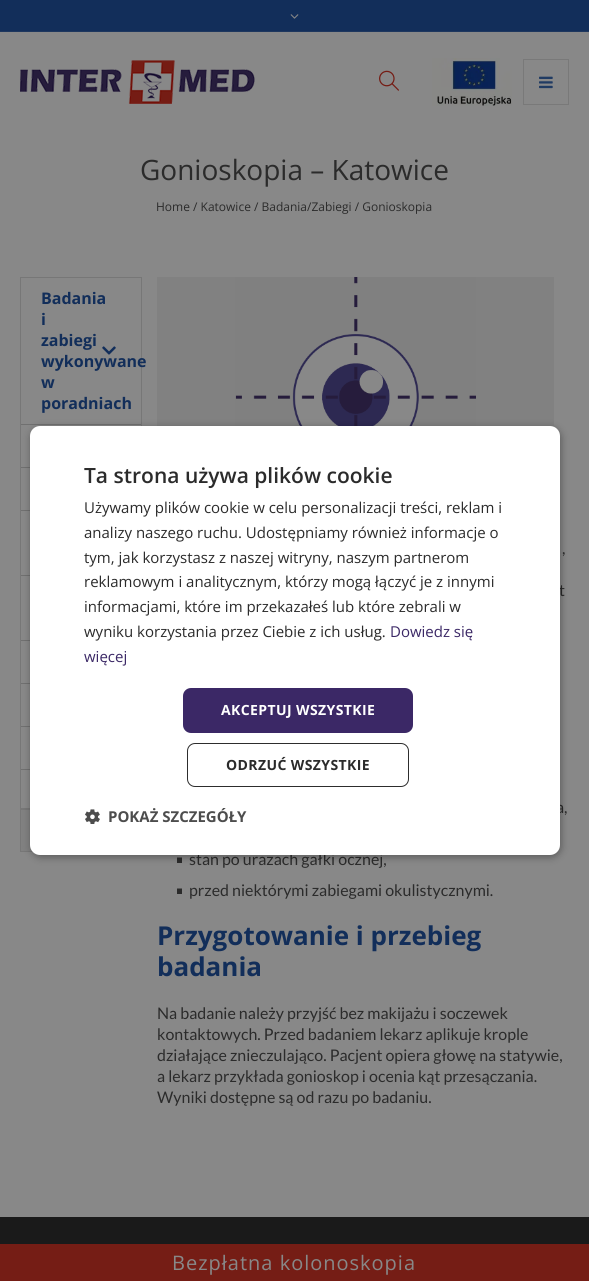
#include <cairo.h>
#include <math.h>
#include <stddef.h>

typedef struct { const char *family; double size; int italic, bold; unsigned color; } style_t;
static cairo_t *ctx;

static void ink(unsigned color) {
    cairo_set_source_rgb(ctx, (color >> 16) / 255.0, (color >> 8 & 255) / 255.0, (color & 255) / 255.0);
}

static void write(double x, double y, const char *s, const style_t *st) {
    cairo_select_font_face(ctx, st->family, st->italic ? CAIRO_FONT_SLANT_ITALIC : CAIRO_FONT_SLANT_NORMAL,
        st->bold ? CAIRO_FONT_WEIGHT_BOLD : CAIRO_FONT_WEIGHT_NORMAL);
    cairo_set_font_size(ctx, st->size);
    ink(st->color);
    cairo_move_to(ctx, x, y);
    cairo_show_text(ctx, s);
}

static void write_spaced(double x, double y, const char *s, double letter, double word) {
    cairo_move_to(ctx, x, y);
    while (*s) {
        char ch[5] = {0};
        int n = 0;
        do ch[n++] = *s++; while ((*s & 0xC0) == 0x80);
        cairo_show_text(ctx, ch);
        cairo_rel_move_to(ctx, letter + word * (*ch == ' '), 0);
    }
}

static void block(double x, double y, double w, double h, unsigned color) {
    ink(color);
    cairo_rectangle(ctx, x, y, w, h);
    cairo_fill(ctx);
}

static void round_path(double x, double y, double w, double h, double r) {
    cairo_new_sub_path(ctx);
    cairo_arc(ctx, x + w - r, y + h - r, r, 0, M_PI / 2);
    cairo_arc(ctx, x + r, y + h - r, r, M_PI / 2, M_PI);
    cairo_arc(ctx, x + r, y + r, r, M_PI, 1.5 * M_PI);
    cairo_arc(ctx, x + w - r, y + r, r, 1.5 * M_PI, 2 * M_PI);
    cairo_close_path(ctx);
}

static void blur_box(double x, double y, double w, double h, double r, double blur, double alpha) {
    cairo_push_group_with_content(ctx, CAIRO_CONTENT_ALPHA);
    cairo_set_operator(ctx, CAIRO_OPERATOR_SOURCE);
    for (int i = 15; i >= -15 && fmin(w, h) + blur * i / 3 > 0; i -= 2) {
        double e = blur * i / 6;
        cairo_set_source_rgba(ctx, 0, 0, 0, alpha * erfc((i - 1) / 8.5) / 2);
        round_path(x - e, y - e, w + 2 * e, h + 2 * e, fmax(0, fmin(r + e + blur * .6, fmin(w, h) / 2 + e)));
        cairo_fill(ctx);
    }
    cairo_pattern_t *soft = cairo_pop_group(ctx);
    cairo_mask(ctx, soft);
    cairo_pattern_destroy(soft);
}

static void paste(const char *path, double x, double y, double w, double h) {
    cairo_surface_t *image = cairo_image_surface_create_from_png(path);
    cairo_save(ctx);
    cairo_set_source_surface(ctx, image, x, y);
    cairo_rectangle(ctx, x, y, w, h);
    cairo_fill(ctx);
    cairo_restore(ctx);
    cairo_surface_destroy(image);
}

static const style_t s1 = {"Open Sans", 28, 0, 0, 0x2b2b2b};
static const style_t s2 = {"Open Sans", 12, 0, 0, 0x2b2b2b};
static const style_t s3 = {"Open Sans", 16, 0, 1, 0x122e5a};
static const style_t s4 = {"Lato", 16, 0, 0, 0x2b2b2b};
static const style_t s5 = {"Open Sans", 26, 0, 1, 0x122e5a};
static const style_t s6 = {"Open Sans SemiBold", 21, 0, 0, 0x2b2b2b};
static const style_t s7 = {"Open Sans", 15, 0, 0, 0x2b2b2b};
static const style_t s8 = {"Open Sans", 15, 0, 0, 0x3b2866};
static const style_t s9 = {"Open Sans", 15, 0, 1, 0x4d4d4d};

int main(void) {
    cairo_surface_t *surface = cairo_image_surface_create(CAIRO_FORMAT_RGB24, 589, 1281);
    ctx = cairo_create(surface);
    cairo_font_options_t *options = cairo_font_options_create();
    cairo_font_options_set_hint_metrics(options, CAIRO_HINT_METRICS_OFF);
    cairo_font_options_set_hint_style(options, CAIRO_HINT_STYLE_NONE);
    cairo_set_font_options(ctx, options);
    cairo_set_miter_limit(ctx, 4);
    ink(0x888888);
    cairo_paint(ctx);
    block(0, 0, 589, 31, 0x122e5a);
    block(0, 31, 589, 1, 0x1e375e);
    paste("pic1.png", 290, 14, 9, 5);
    paste("pic2.png", 20, 60, 235, 44);
    paste("pic3.png", 379, 70, 20, 21);
    paste("pic4.png", 432, 58, 80, 48);
    cairo_rectangle(ctx, 523.5, 59.5, 45, 45);
    ink(0x797979);
    cairo_set_line_width(ctx, 1);
    cairo_stroke(ctx);
    paste("pic5.png", 539, 76, 14, 13);
    write(140, 180, "Gonioskopia – Katowice", &s1);
    write(156, 211, "Home / Katowice / Badania/Zabiegi / Gonioskopia", &s2);
    cairo_rectangle(ctx, 20.5, 277.5, 121, 531);
    ink(0x777777);
    cairo_stroke(ctx);
    write(41, 304, "Badania", &s3);
    write(41, 325, "i", &s3);
    write(41, 346, "zabiegi", &s3);
    write(41, 367, "wykonywane", &s3);
    paste("pic6.png", 102, 346, 14, 9);
    write(41, 388, "w", &s3);
    write(41, 409, "poradniach", &s3);
    block(21, 424, 120, 1, 0x707070);
    block(21, 467, 9, 1, 0x707070);
    block(21, 510, 9, 1, 0x707070);
    block(21, 575, 9, 1, 0x707070);
    block(21, 640, 9, 1, 0x707070);
    block(21, 683, 9, 1, 0x707070);
    block(21, 726, 9, 1, 0x707070);
    block(21, 769, 9, 1, 0x707070);
    cairo_rectangle(ctx, 20.5, 809.5, 121, 42);
    ink(0x777777);
    cairo_stroke(ctx);
    block(21, 810, 11, 41, 0x818181);
    block(157, 277, 397, 150, 0x818181);
    paste("pic7.png", 235, 277, 241, 149);
    write(562, 554, ",", &s4);
    write(559, 596, "t", &s4);
    write(556, 813, "a,", &s4);
    cairo_new_path(ctx);
    cairo_move_to(ctx, 182, 857.5);
    cairo_line_to(ctx, 182, 863);
    cairo_line_to(ctx, 177, 863);
    cairo_line_to(ctx, 177, 857.5);
    cairo_close_path(ctx);
    cairo_fill(ctx);
    write(189, 865, "stan po urazach gałki ocznej,", &s4);
    cairo_new_path(ctx);
    cairo_move_to(ctx, 182, 888.5);
    cairo_line_to(ctx, 182, 894);
    cairo_line_to(ctx, 177, 894);
    cairo_line_to(ctx, 177, 888.5);
    cairo_close_path(ctx);
    cairo_fill(ctx);
    write(189, 896, "przed niektórymi zabiegami okulistycznymi.", &s4);
    write(157, 945, "Przygotowanie i przebieg", &s5);
    write(157, 976, "badania", &s5);
    write(157, 1019, "Na badanie należy przyjść bez makijażu i soczewek", &s4);
    write(157, 1040, "kontaktowych. Przed badaniem lekarz aplikuje krople", &s4);
    write(157, 1061, "działające znieczulająco. Pacjent opiera głowę na statywie,", &s4);
    write(157, 1082, "a lekarz przykłada gonioskop i ocenia kąt przesączania.", &s4);
    write(157, 1103, "Wyniki dostępne są od razu po badaniu.", &s4);
    block(0, 1217, 589, 27, 0x1a1a1a);
    ink(0x000000);
    blur_box(31, 428, 530, 429, 10, 4, 0.35);
    ink(0xffffff);
    round_path(30, 426, 530, 429, 10);
    cairo_fill(ctx);
    write(84, 483, "Ta strona używa plików cookie", &s6);
    write(84, 513, "Używamy plików cookie w celu personalizacji treści, reklam i", &s7);
    write(84, 538, "analizy naszego ruchu. Udostępniamy również informacje o", &s7);
    write(84, 563, "tym, jak korzystasz z naszej witryny, naszym partnerom", &s7);
    write(84, 587, "reklamowym i analitycznym, którzy mogą łączyć je z innymi", &s7);
    write(84, 612, "informacjami, które im przekazałeś lub które zebrali w", &s7);
    write(84, 637, "wyniku korzystania przez Ciebie z ich usług.", &s7);
    write(390, 637, "Dowiedz się", &s8);
    write(84, 662, "więcej", &s8);
    round_path(183, 688, 230, 45, 8);
    cairo_fill(ctx);
    cairo_select_font_face(ctx, "Open Sans", CAIRO_FONT_SLANT_NORMAL, CAIRO_FONT_WEIGHT_BOLD);
    cairo_set_font_size(ctx, 14);
    ink(0xffffff);
    write_spaced(221, 715, "AKCEPTUJ WSZYSTKIE", 0.4, 0);
    round_path(187.5, 743.5, 221, 43, 7.5);
    ink(0x2d2d2d);
    cairo_stroke(ctx);
    ink(0x2b2b2b);
    write_spaced(226, 770, "ODRZUĆ WSZYSTKIE", 0.4, 0);
    paste("pic8.png", 85, 809, 15, 15);
    write(108, 822, "POKAŻ SZCZEGÓŁY", &s9);
    block(0, 1244, 589, 37, 0x751d15);
    cairo_select_font_face(ctx, "Open Sans", CAIRO_FONT_SLANT_NORMAL, CAIRO_FONT_WEIGHT_NORMAL);
    cairo_set_font_size(ctx, 20);
    ink(0x888888);
    write_spaced(172, 1270, "Bezpłatna kolonoskopia", 1, 0);
    cairo_surface_write_to_png(surface, "screenshot.png");
    cairo_font_options_destroy(options);
    cairo_destroy(ctx);
    cairo_surface_destroy(surface);
    return 0;
}
